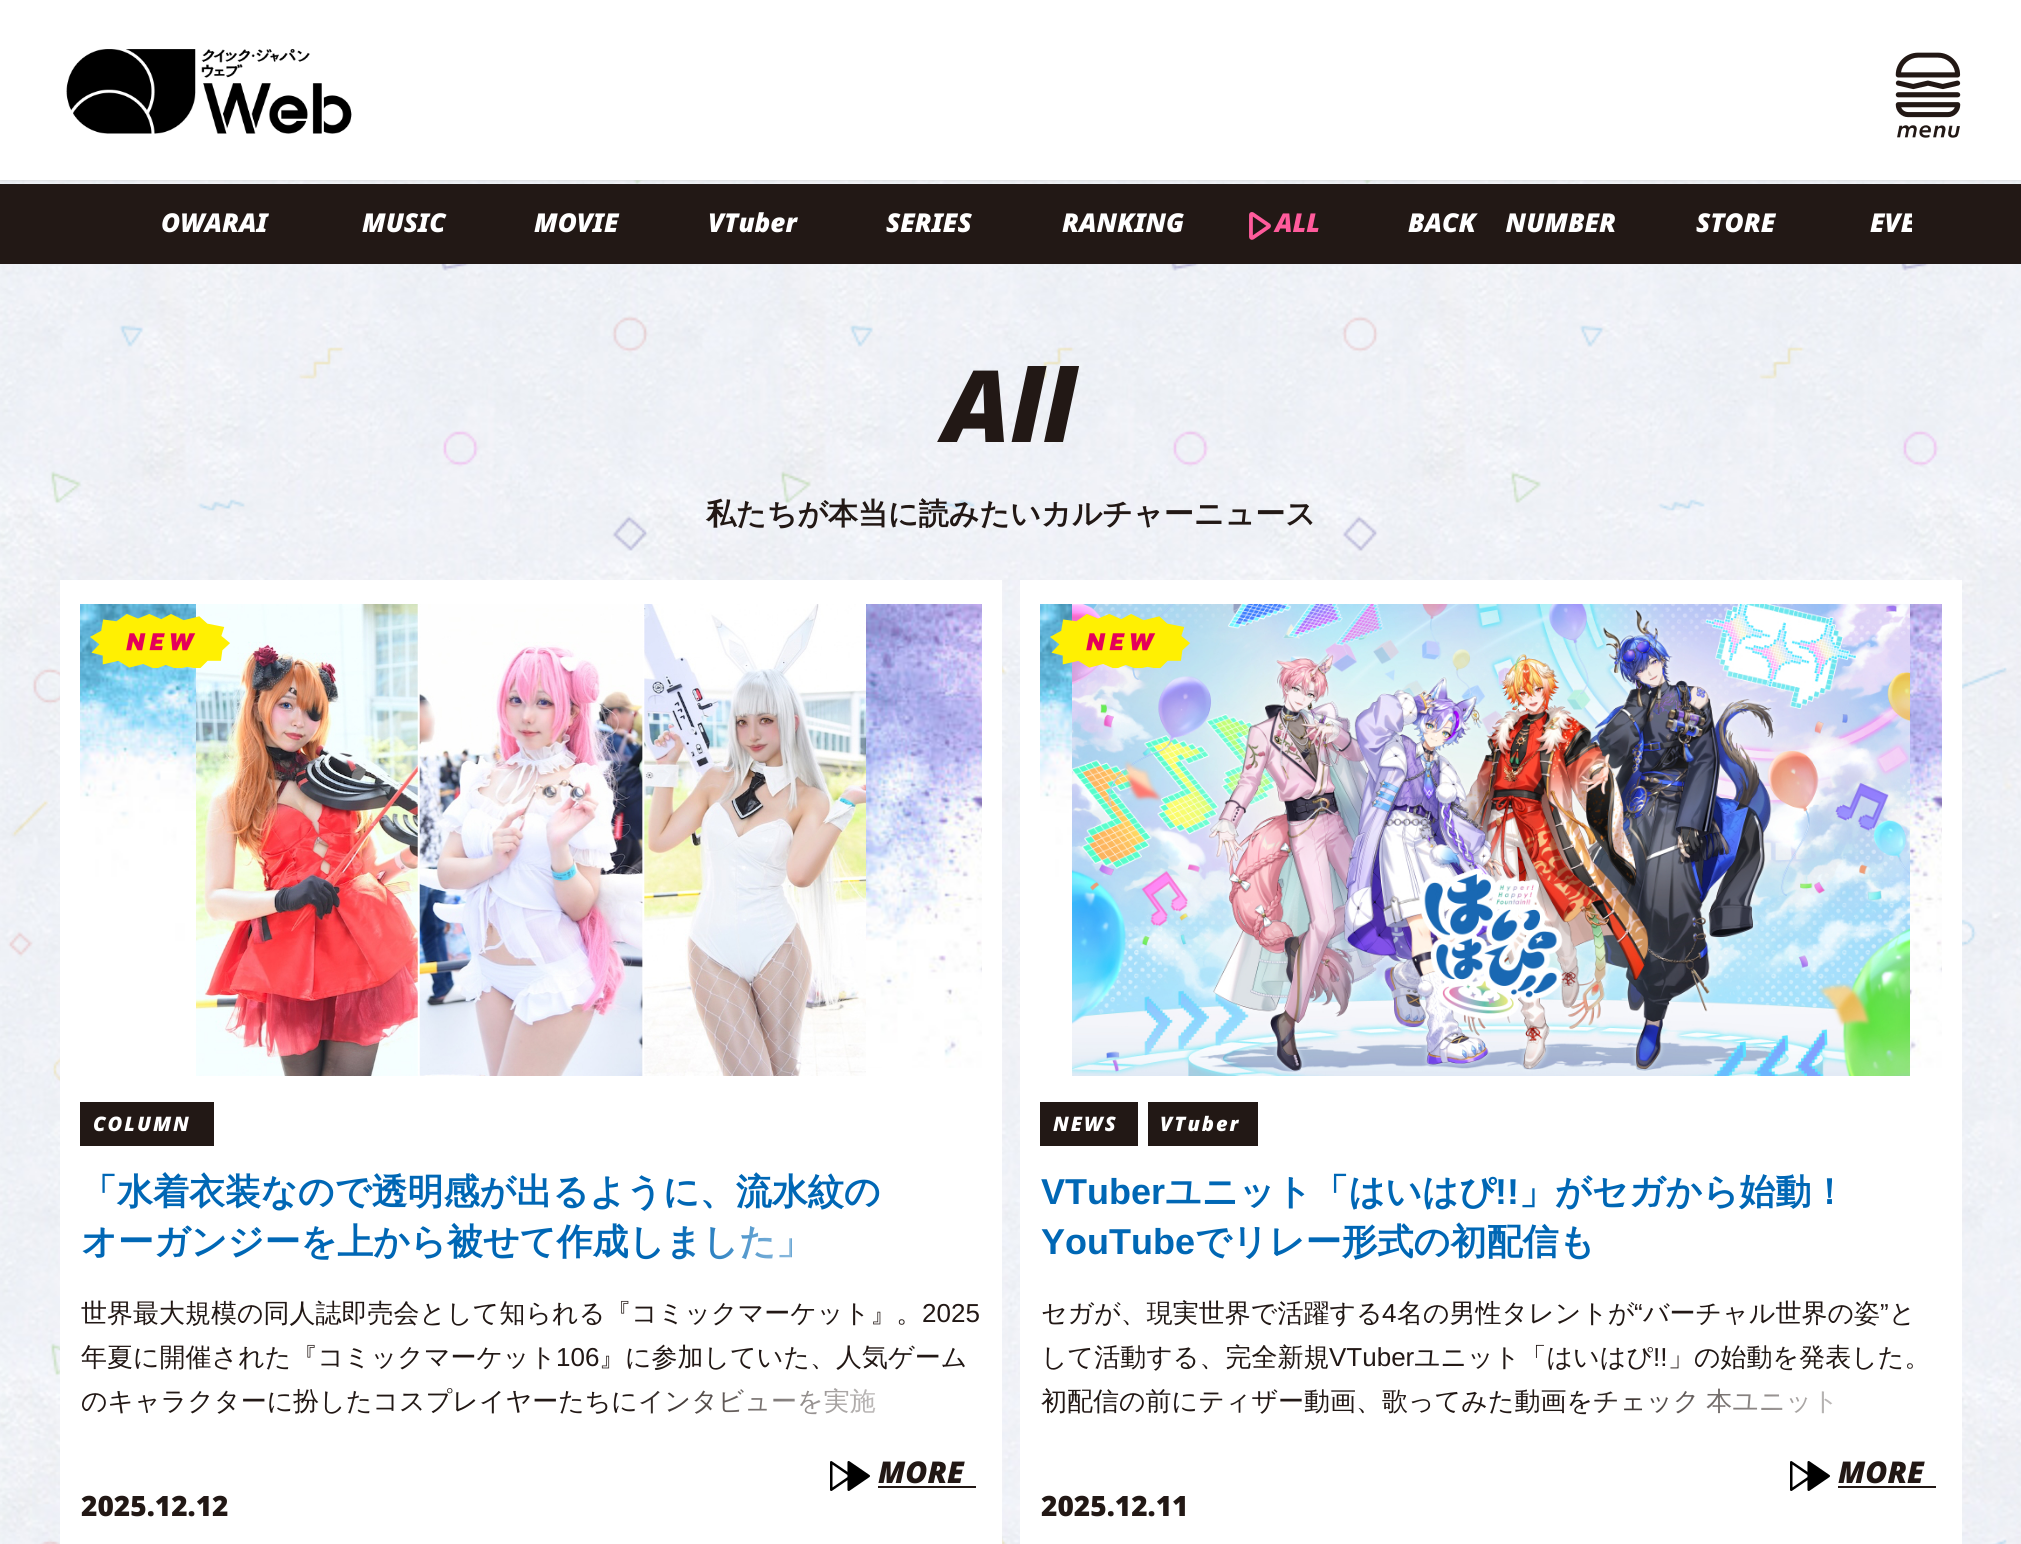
#include <cairo.h>
#include <math.h>
#include <stddef.h>

typedef struct { const char *family; double size; int italic, bold; unsigned color; } style_t;
static cairo_t *ctx;

static void ink(unsigned color) {
    cairo_set_source_rgb(ctx, (color >> 16) / 255.0, (color >> 8 & 255) / 255.0, (color & 255) / 255.0);
}

static void write(double x, double y, const char *s, const style_t *st) {
    cairo_select_font_face(ctx, st->family, st->italic ? CAIRO_FONT_SLANT_ITALIC : CAIRO_FONT_SLANT_NORMAL,
        st->bold ? CAIRO_FONT_WEIGHT_BOLD : CAIRO_FONT_WEIGHT_NORMAL);
    cairo_set_font_size(ctx, st->size);
    ink(st->color);
    cairo_move_to(ctx, x, y);
    cairo_show_text(ctx, s);
}

static void write_spaced(double x, double y, const char *s, double letter, double word) {
    cairo_move_to(ctx, x, y);
    while (*s) {
        char ch[5] = {0};
        int n = 0;
        do ch[n++] = *s++; while ((*s & 0xC0) == 0x80);
        cairo_show_text(ctx, ch);
        cairo_rel_move_to(ctx, letter + word * (*ch == ' '), 0);
    }
}

static void block(double x, double y, double w, double h, unsigned color) {
    ink(color);
    cairo_rectangle(ctx, x, y, w, h);
    cairo_fill(ctx);
}

static void round_path(double x, double y, double w, double h, double r) {
    cairo_new_sub_path(ctx);
    cairo_arc(ctx, x + w - r, y + h - r, r, 0, M_PI / 2);
    cairo_arc(ctx, x + r, y + h - r, r, M_PI / 2, M_PI);
    cairo_arc(ctx, x + r, y + r, r, M_PI, 1.5 * M_PI);
    cairo_arc(ctx, x + w - r, y + r, r, 1.5 * M_PI, 2 * M_PI);
    cairo_close_path(ctx);
}

static void blur_box(double x, double y, double w, double h, double r, double blur, double alpha) {
    cairo_push_group_with_content(ctx, CAIRO_CONTENT_ALPHA);
    cairo_set_operator(ctx, CAIRO_OPERATOR_SOURCE);
    for (int i = 15; i >= -15 && fmin(w, h) + blur * i / 3 > 0; i -= 2) {
        double e = blur * i / 6;
        cairo_set_source_rgba(ctx, 0, 0, 0, alpha * erfc((i - 1) / 8.5) / 2);
        round_path(x - e, y - e, w + 2 * e, h + 2 * e, fmax(0, fmin(r + e + blur * .6, fmin(w, h) / 2 + e)));
        cairo_fill(ctx);
    }
    cairo_pattern_t *soft = cairo_pop_group(ctx);
    cairo_mask(ctx, soft);
    cairo_pattern_destroy(soft);
}

static void paste(const char *path, double x, double y, double w, double h) {
    cairo_surface_t *image = cairo_image_surface_create_from_png(path);
    cairo_save(ctx);
    cairo_set_source_surface(ctx, image, x, y);
    cairo_rectangle(ctx, x, y, w, h);
    cairo_fill(ctx);
    cairo_restore(ctx);
    cairo_surface_destroy(image);
}

static const style_t s1 = {"Noto Sans Black", 26, 1, 0, 0xffffff};
static const style_t s2 = {"Noto Sans Black", 26, 1, 0, 0xff5b9c};
static const style_t s3 = {"Noto Sans Black", 100, 1, 0, 0x221815};
static const style_t s4 = {"WenQuanYi Zen Hei", 30, 0, 1, 0x221815};
static const style_t s5 = {"WenQuanYi Zen Hei", 36, 0, 1, 0x0067b5};
static const style_t s6 = {"WenQuanYi Zen Hei Medium", 26, 0, 0, 0x221815};
static const style_t s7 = {"Liberation Sans", 26, 0, 0, 0x221815};
static const style_t s8 = {"Noto Sans Black", 30, 1, 0, 0x221815};
static const style_t s9 = {"Noto Sans Black", 28, 0, 0, 0x221815};
static const style_t s10 = {"Liberation Sans", 36, 0, 1, 0x0067b5};

int main(void) {
    cairo_surface_t *surface = cairo_image_surface_create(CAIRO_FORMAT_RGB24, 2021, 1544);
    ctx = cairo_create(surface);
    cairo_font_options_t *options = cairo_font_options_create();
    cairo_font_options_set_hint_metrics(options, CAIRO_HINT_METRICS_OFF);
    cairo_font_options_set_hint_style(options, CAIRO_HINT_STYLE_NONE);
    cairo_set_font_options(ctx, options);
    cairo_set_miter_limit(ctx, 4);
    cairo_pattern_t *gradient;
    ink(0xffffff);
    cairo_paint(ctx);
    paste("pic1.png", 0, 180, 2021, 1364);
    block(0, 184, 2021, 80, 0x221815);
    ink(0xcccccc);
    blur_box(0, 0, 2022, 180, 0, 2, 1);
    block(0, 0, 2021, 180, 0xffffff);
    paste("pic2.png", 66, 49, 286, 85);
    paste("pic3.png", 1895, 52, 66, 86);
    write(161, 232, "OWARAI", &s1);
    write(362, 232, "MUSIC", &s1);
    write(534, 232, "MOVIE", &s1);
    write(708, 232, "VTuber", &s1);
    write(886, 232, "SERIES", &s1);
    write(1062, 232, "RANKING", &s1);
    paste("pic4.png", 1249, 212, 22, 28);
    write(1275, 232, "ALL", &s2);
    ink(0xffffff);
    write_spaced(1408, 232, "BACK NUMBER", 0, 23);
    write(1696, 232, "STORE", &s1);
    cairo_save(ctx);
    cairo_rectangle(ctx, 112, 184, 1800, 84);
    cairo_clip(ctx);
    write(1870, 232, "EVE", &s1);
    cairo_restore(ctx);
    write(943, 442, "All", &s3);
    write(706, 524, "私たちが本当に読みたいカルチャーニュース", &s4);
    block(60, 580, 942, 964, 0xffffff);
    paste("pic5.png", 80, 604, 902, 464);
    paste("pic7.png", 196, 604, 670, 472);
    paste("pic6.png", 90, 614, 140, 54);
    block(80, 1102, 134, 44, 0x221815);
    cairo_select_font_face(ctx, "Noto Sans Black", CAIRO_FONT_SLANT_ITALIC, CAIRO_FONT_WEIGHT_NORMAL);
    cairo_set_font_size(ctx, 20);
    ink(0xffffff);
    write_spaced(93, 1131, "COLUMN", 2, 0);
    write(81, 1204, "「水着衣装なので透明感が出るように、流水紋の", &s5);
    write(81, 1254, "オーガンジーを上から被せて作成しました」", &s5);
    gradient = cairo_pattern_create_linear(672, 1249, 892, 1249);
    cairo_pattern_add_color_stop_rgba(gradient, 0, 1, 1, 1, 0);
    cairo_pattern_add_color_stop_rgba(gradient, 1, 1, 1, 1, 1);
    cairo_set_source(ctx, gradient);
    cairo_pattern_destroy(gradient);
    cairo_rectangle(ctx, 677, 1227, 114, 33);
    cairo_fill(ctx);
    write(81, 1322, "世界最大規模の同人誌即売会として知られる『コミックマーケット』。", &s6);
    write(922, 1322, "2025", &s7);
    write(81, 1366, "年夏に開催された『コミックマーケット", &s6);
    write(556, 1366, "106", &s7);
    write(599, 1366, "』に参加していた、人気ゲーム", &s6);
    write(81, 1410, "のキャラクターに扮したコスプレイヤーたちにインタビューを実施", &s6);
    gradient = cairo_pattern_create_linear(622, 1395, 982, 1395);
    cairo_pattern_add_color_stop_rgba(gradient, 0, 1, 1, 1, 0);
    cairo_pattern_add_color_stop_rgba(gradient, 1, 1, 1, 1, 1);
    cairo_set_source(ctx, gradient);
    cairo_pattern_destroy(gradient);
    cairo_rectangle(ctx, 630, 1387, 245, 28);
    cairo_fill(ctx);
    paste("pic8.png", 830, 1461, 40, 30);
    write(878, 1483, "MORE", &s8);
    block(878, 1486, 98, 2, 0x221815);
    write(81, 1516, "2025.12.12", &s9);
    block(1020, 580, 942, 964, 0xffffff);
    paste("pic5.png", 1040, 604, 902, 464);
    paste("pic9.png", 1072, 604, 838, 472);
    paste("pic10.png", 1050, 614, 140, 54);
    block(1040, 1102, 98, 44, 0x221815);
    cairo_select_font_face(ctx, "Noto Sans Black", CAIRO_FONT_SLANT_ITALIC, CAIRO_FONT_WEIGHT_NORMAL);
    cairo_set_font_size(ctx, 20);
    ink(0xffffff);
    write_spaced(1053, 1131, "NEWS", 2, 0);
    block(1148, 1102, 110, 44, 0x221815);
    ink(0xffffff);
    write_spaced(1160, 1131, "VTuber", 2, 0);
    write(1041, 1204, "VTuber", &s10);
    write(1165, 1204, "ユニット「はいはぴ", &s5);
    write(1495, 1204, "!!", &s10);
    write(1519, 1204, "」がセガから始動！", &s5);
    write(1041, 1254, "YouTube", &s10);
    write(1195, 1254, "でリレー形式の初配信も", &s5);
    write(1041, 1322, "セガが、現実世界で活躍する", &s6);
    write(1382, 1322, "4", &s7);
    write(1397, 1322, "名の男性タレントが", &s6);
    write(1634, 1322, "“", &s7);
    write(1643, 1322, "バーチャル世界の姿", &s6);
    write(1880, 1322, "”", &s7);
    write(1889, 1322, "と", &s6);
    write(1041, 1366, "して活動する、完全新規", &s6);
    write(1329, 1366, "VTuber", &s7);
    write(1414, 1366, "ユニット「はいはぴ", &s6);
    write(1653, 1366, "!!", &s7);
    write(1668, 1366, "」の始動を発表した。", &s6);
    write_spaced(1041, 1410, "初配信の前にティザー動画、歌ってみた動画をチェック 本ユニット", 0, -1);
    gradient = cairo_pattern_create_linear(1582, 1395, 1942, 1395);
    cairo_pattern_add_color_stop_rgba(gradient, 0, 1, 1, 1, 0);
    cairo_pattern_add_color_stop_rgba(gradient, 1, 1, 1, 1, 1);
    cairo_set_source(ctx, gradient);
    cairo_pattern_destroy(gradient);
    cairo_rectangle(ctx, 1594, 1388, 238, 26);
    cairo_fill(ctx);
    paste("pic8.png", 1790, 1461, 40, 30);
    write(1838, 1483, "MORE", &s8);
    block(1838, 1486, 98, 2, 0x221815);
    write(1041, 1516, "2025.12.11", &s9);
    cairo_surface_write_to_png(surface, "screenshot.png");
    cairo_font_options_destroy(options);
    cairo_destroy(ctx);
    cairo_surface_destroy(surface);
    return 0;
}
